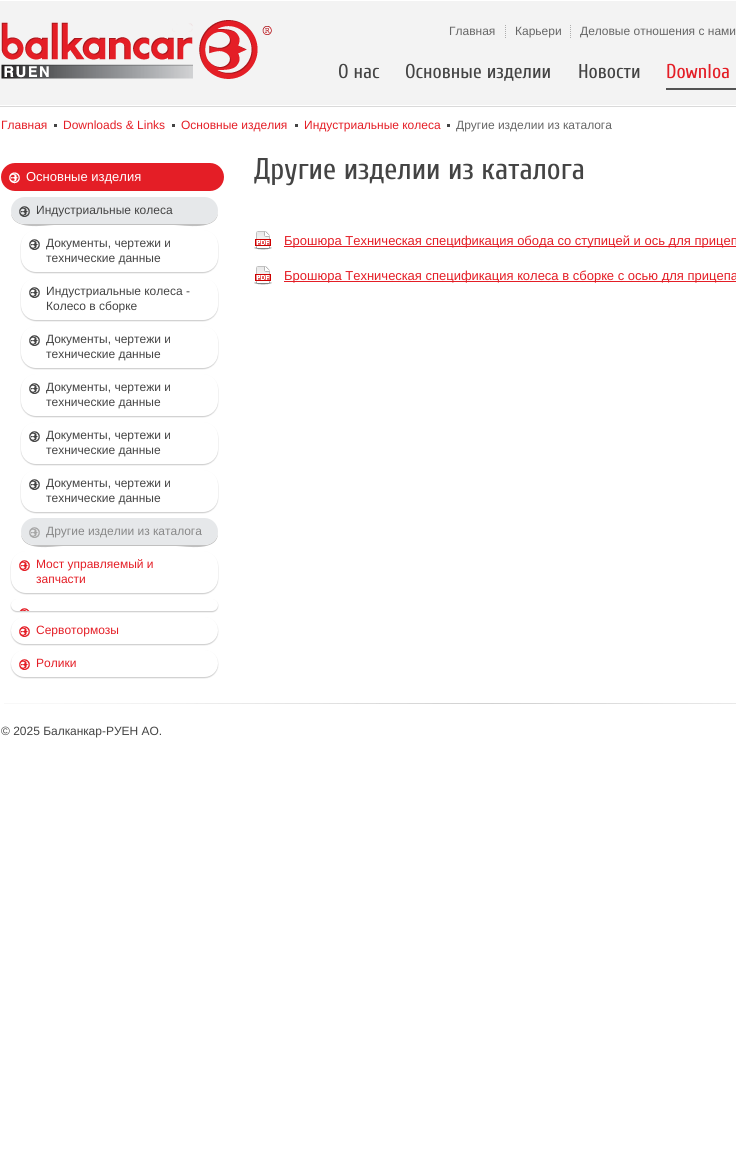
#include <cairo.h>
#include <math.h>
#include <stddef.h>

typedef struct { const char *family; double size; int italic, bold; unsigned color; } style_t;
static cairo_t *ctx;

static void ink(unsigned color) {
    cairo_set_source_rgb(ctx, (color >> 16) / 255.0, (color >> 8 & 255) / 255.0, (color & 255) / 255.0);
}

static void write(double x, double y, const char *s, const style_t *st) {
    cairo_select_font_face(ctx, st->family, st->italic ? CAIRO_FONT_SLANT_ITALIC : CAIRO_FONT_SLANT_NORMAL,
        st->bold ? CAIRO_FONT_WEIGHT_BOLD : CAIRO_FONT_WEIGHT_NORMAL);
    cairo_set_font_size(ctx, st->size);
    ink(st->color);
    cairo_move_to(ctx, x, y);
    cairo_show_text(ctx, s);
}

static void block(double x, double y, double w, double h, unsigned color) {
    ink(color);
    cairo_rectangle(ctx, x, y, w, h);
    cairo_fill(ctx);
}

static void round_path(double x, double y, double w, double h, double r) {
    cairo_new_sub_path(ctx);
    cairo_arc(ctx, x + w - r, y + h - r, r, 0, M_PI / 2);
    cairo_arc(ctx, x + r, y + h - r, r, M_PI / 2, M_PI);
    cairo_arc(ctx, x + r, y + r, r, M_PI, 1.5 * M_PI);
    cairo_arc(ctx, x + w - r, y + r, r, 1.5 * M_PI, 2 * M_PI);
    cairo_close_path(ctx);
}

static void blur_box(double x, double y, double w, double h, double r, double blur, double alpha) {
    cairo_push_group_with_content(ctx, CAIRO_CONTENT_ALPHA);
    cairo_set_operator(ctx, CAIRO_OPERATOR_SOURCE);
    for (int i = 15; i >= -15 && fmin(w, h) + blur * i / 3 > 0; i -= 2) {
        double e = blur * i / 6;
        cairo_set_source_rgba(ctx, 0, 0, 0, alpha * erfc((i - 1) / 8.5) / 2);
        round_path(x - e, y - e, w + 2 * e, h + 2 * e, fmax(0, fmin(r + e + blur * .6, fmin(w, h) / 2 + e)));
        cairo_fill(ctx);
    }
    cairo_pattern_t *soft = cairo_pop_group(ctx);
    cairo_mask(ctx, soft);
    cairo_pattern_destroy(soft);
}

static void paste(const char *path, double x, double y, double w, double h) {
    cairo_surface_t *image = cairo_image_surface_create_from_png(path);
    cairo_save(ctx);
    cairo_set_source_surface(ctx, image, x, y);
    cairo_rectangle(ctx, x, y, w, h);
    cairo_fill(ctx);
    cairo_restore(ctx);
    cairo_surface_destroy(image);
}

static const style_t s1 = {"Liberation Sans", 12, 0, 0, 0x666666};
static const style_t s2 = {"Cuprum", 20, 0, 0, 0x444444};
static const style_t s3 = {"Cuprum", 20, 0, 0, 0xe41e26};
static const style_t s4 = {"Liberation Sans", 12, 0, 0, 0xe41e26};
static const style_t s5 = {"Liberation Sans", 13, 0, 0, 0xffffff};
static const style_t s6 = {"Liberation Sans", 12, 0, 0, 0x444444};
static const style_t s7 = {"Liberation Sans", 12, 0, 0, 0x888888};
static const style_t s8 = {"Cuprum", 30, 0, 0, 0x444444};
static const style_t s9 = {"Liberation Sans", 13, 0, 0, 0xe41e26};

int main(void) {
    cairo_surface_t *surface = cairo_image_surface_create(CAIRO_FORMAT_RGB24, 736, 1172);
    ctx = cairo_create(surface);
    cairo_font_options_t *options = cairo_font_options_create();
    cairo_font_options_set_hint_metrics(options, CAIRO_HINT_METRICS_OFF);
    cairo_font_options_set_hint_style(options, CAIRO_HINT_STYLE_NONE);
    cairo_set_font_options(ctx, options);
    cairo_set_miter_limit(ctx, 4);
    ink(0xffffff);
    cairo_paint(ctx);
    paste("pic1.png", 0, 1, 736, 106);
    paste("pic2.png", 1, 20, 271, 59);
    cairo_new_path(ctx);
    cairo_move_to(ctx, 505.5, 25);
    cairo_line_to(ctx, 505.5, 38);
    ink(0xaeaeae);
    cairo_set_line_width(ctx, 1);
    cairo_set_dash(ctx, (double[]){1, 1}, 2, 0);
    cairo_stroke(ctx);
    write(449, 35, "Главная", &s1);
    cairo_new_path(ctx);
    cairo_move_to(ctx, 570.5, 25);
    cairo_line_to(ctx, 570.5, 38);
    ink(0xaeaeae);
    cairo_stroke(ctx);
    write(515, 35, "Карьери", &s1);
    write(580, 35, "Деловые отношения с нами", &s1);
    write(338, 78, "О нас", &s2);
    write(405, 78, "Основные изделии", &s2);
    write(578, 78, "Новости", &s2);
    block(666, 88, 70, 2, 0x535353);
    write(666, 78, "Downloa", &s3);
    block(54, 124, 3, 3, 0x444444);
    write(1, 129, "Главная", &s4);
    block(172, 124, 3, 3, 0x444444);
    write(63, 129, "Downloads & Links", &s4);
    block(295, 124, 3, 3, 0x444444);
    write(181, 129, "Основные изделия", &s4);
    block(447, 124, 3, 3, 0x444444);
    write(304, 129, "Индустриальные колеса", &s4);
    write(456, 129, "Другие изделии из каталога", &s1);
    ink(0xe41e26);
    round_path(1, 163, 223, 28, 14);
    cairo_fill(ctx);
    paste("pic3.png", 9, 172, 11, 12);
    write(26, 181, "Основные изделия", &s5);
    ink(0xc0c0c0);
    cairo_new_path(ctx);
    cairo_move_to(ctx, 11, 211);
    cairo_curve_to(ctx, 10, 232, 46, 225, 54, 225);
    cairo_line_to(ctx, 174, 225);
    cairo_curve_to(ctx, 183, 225, 219, 232, 218, 211);
    cairo_curve_to(ctx, 218, 218, 212, 224, 204, 224);
    cairo_line_to(ctx, 24, 224);
    cairo_curve_to(ctx, 17, 224, 11, 218, 11, 211);
    cairo_close_path(ctx);
    cairo_fill(ctx);
    ink(0xe6e8ea);
    round_path(11, 197, 207, 27, 13.5);
    cairo_fill(ctx);
    paste("pic4.png", 19, 206, 11, 11);
    write(36, 214, "Индустриальные колеса", &s6);
    ink(0xcccccc);
    blur_box(21, 231, 197, 42, 15, 0.5, 1);
    ink(0xffffff);
    round_path(21, 230, 197, 42, 15);
    cairo_fill(ctx);
    paste("pic5.png", 29, 239, 11, 11);
    write(46, 247, "Документы, чертежи и", &s6);
    write(46, 262, "технические данные", &s6);
    ink(0xcccccc);
    blur_box(21, 279, 197, 42, 15, 0.5, 1);
    ink(0xffffff);
    round_path(21, 278, 197, 42, 15);
    cairo_fill(ctx);
    paste("pic5.png", 29, 287, 11, 11);
    write(46, 295, "Индустриальные колеса -", &s6);
    write(46, 310, "Колесо в сборке", &s6);
    ink(0xcccccc);
    blur_box(21, 327, 197, 42, 15, 0.5, 1);
    ink(0xffffff);
    round_path(21, 326, 197, 42, 15);
    cairo_fill(ctx);
    paste("pic5.png", 29, 335, 11, 11);
    write(46, 343, "Документы, чертежи и", &s6);
    write(46, 358, "технические данные", &s6);
    ink(0xcccccc);
    blur_box(21, 375, 197, 42, 15, 0.5, 1);
    ink(0xffffff);
    round_path(21, 374, 197, 42, 15);
    cairo_fill(ctx);
    paste("pic5.png", 29, 383, 11, 11);
    write(46, 391, "Документы, чертежи и", &s6);
    write(46, 406, "технические данные", &s6);
    ink(0xcccccc);
    blur_box(21, 423, 197, 42, 15, 0.5, 1);
    ink(0xffffff);
    round_path(21, 422, 197, 42, 15);
    cairo_fill(ctx);
    paste("pic5.png", 29, 431, 11, 11);
    write(46, 439, "Документы, чертежи и", &s6);
    write(46, 454, "технические данные", &s6);
    ink(0xcccccc);
    blur_box(21, 471, 197, 42, 15, 0.5, 1);
    ink(0xffffff);
    round_path(21, 470, 197, 42, 15);
    cairo_fill(ctx);
    paste("pic5.png", 29, 479, 11, 11);
    write(46, 487, "Документы, чертежи и", &s6);
    write(46, 502, "технические данные", &s6);
    ink(0xc0c0c0);
    cairo_new_path(ctx);
    cairo_move_to(ctx, 21, 532);
    cairo_curve_to(ctx, 20, 553, 54, 546, 63, 546);
    cairo_line_to(ctx, 176, 546);
    cairo_curve_to(ctx, 185, 546, 219, 553, 218, 532);
    cairo_curve_to(ctx, 218, 539, 212, 545, 204, 545);
    cairo_line_to(ctx, 34, 545);
    cairo_curve_to(ctx, 27, 545, 21, 539, 21, 532);
    cairo_close_path(ctx);
    cairo_fill(ctx);
    ink(0xe6e8ea);
    round_path(21, 518, 197, 27, 13.5);
    cairo_fill(ctx);
    paste("pic6.png", 29, 527, 11, 11);
    write(46, 535, "Другие изделии из каталога", &s7);
    ink(0xcccccc);
    blur_box(11, 552, 207, 42, 15, 0.5, 1);
    ink(0xffffff);
    round_path(11, 551, 207, 42, 15);
    cairo_fill(ctx);
    paste("pic7.png", 19, 560, 11, 11);
    write(36, 568, "Мост управляемый и", &s4);
    write(36, 583, "запчасти", &s4);
    ink(0xcccccc);
    blur_box(11, 600, 207, 12, 6, 0.5, 1);
    ink(0xffffff);
    round_path(11, 599, 207, 12, 6);
    cairo_fill(ctx);
    paste("pic8.png", 19, 608, 11, 3);
    ink(0xcccccc);
    blur_box(11, 618, 207, 27, 13.5, 0.5, 1);
    ink(0xffffff);
    round_path(11, 617, 207, 27, 13.5);
    cairo_fill(ctx);
    paste("pic7.png", 19, 626, 11, 11);
    write(36, 634, "Сервотормозы", &s4);
    ink(0xcccccc);
    blur_box(11, 651, 207, 27, 13.5, 0.5, 1);
    ink(0xffffff);
    round_path(11, 650, 207, 27, 13.5);
    cairo_fill(ctx);
    paste("pic7.png", 19, 659, 11, 11);
    write(36, 667, "Ролики", &s4);
    write(254, 179, "Другие изделии из каталога", &s8);
    paste("pic9.png", 254, 231, 18, 19);
    block(284, 246, 452, 1, 0xe41e26);
    write(284, 245, "Брошюра Техническая спецификация обода со ступицей и ось для прицеп", &s9);
    paste("pic9.png", 254, 266, 18, 19);
    block(284, 281, 452, 1, 0xe41e26);
    write(284, 280, "Брошюра Техническая спецификация колеса в сборке с осью для прицепа", &s9);
    paste("pic10.png", 4, 703, 732, 1);
    write(1, 735, "© 2025 Балканкар-РУЕН АО.", &s6);
    cairo_surface_write_to_png(surface, "screenshot.png");
    cairo_font_options_destroy(options);
    cairo_destroy(ctx);
    cairo_surface_destroy(surface);
    return 0;
}
